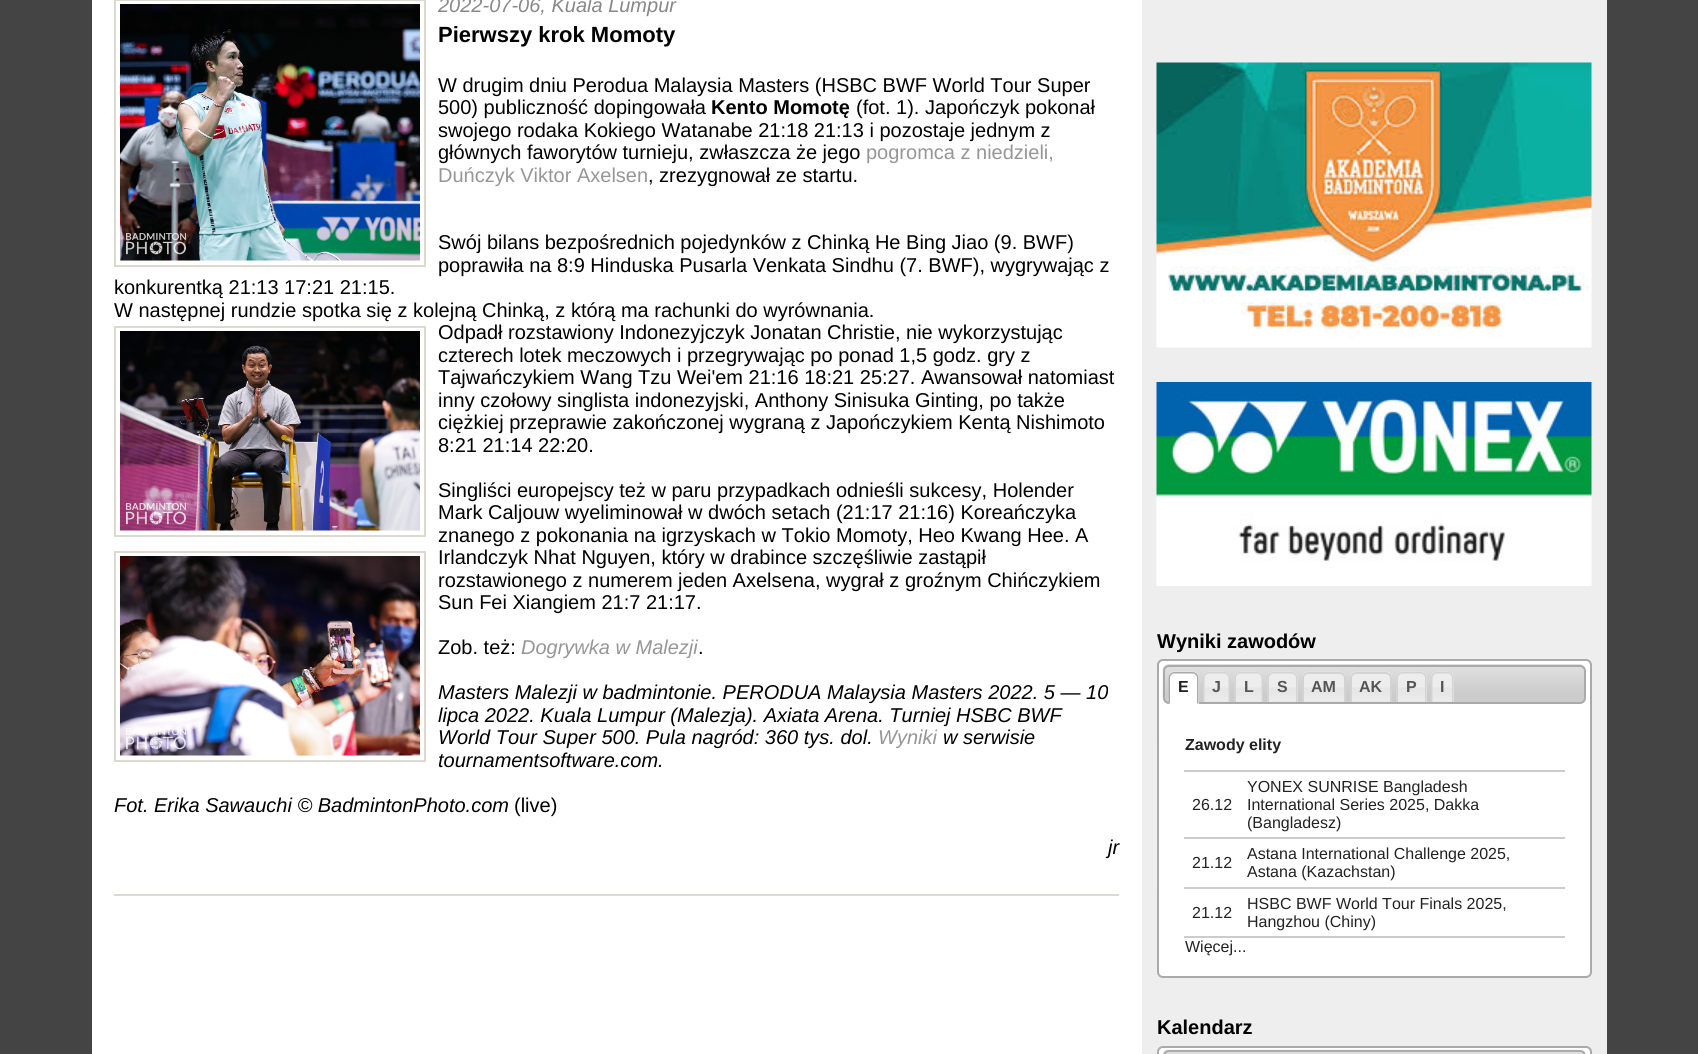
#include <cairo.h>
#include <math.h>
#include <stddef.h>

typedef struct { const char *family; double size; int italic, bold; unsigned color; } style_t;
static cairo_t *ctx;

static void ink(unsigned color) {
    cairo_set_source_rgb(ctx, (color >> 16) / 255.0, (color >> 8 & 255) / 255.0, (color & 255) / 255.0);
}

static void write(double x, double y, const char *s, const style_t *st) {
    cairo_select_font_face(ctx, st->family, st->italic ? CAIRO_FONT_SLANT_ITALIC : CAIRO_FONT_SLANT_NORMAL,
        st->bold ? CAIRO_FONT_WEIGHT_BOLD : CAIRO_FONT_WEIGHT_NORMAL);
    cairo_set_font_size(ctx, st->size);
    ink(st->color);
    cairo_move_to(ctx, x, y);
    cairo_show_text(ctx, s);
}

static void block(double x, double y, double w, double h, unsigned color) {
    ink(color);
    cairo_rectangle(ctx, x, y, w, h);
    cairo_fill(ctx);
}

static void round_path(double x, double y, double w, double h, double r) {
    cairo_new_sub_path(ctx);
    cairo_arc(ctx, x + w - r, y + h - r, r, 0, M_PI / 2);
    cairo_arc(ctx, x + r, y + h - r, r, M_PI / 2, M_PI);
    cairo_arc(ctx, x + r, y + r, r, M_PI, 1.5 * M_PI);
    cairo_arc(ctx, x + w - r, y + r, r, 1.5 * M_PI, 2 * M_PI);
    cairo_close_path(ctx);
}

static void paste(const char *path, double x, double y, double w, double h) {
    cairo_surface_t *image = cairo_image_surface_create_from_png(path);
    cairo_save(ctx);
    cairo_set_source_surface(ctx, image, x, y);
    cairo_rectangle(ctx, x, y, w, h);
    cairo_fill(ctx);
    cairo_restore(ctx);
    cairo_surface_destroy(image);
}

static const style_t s1 = {"Liberation Sans", 20, 1, 0, 0x888888};
static const style_t s2 = {"Liberation Sans", 22, 0, 1, 0x000000};
static const style_t s3 = {"Liberation Sans", 20, 0, 0, 0x000000};
static const style_t s4 = {"Liberation Sans", 20, 0, 1, 0x000000};
static const style_t s5 = {"Liberation Sans", 20, 0, 0, 0x969696};
static const style_t s6 = {"Liberation Sans", 20, 1, 0, 0x969696};
static const style_t s7 = {"Liberation Sans", 20, 1, 0, 0x000000};
static const style_t s8 = {"Liberation Sans", 16, 0, 1, 0x222222};
static const style_t s9 = {"Liberation Sans", 16, 0, 1, 0x555555};
static const style_t s10 = {"Liberation Sans", 16, 0, 0, 0x222222};

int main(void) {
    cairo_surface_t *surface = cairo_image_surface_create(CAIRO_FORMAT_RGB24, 1698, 1054);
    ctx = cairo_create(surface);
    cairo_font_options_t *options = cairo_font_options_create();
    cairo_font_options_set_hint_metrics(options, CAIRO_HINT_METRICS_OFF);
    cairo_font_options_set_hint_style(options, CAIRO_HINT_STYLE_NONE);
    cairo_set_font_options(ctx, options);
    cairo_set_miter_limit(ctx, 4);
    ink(0x444444);
    cairo_paint(ctx);
    block(92, 0, 1050, 1054, 0xffffff);
    block(114, 894, 1005, 2, 0xded9ce);
    cairo_rectangle(ctx, 115, 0, 310, 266);
    cairo_stroke(ctx);
    paste("pic1.png", 120, 4, 300, 257);
    write(438, 12, "2022-07-06, Kuala Lumpur", &s1);
    write(438, 42, "Pierwszy krok Momoty", &s2);
    write(438, 92, "W drugim dniu Perodua Malaysia Masters (HSBC BWF World Tour Super", &s3);
    write(438, 114, "500) publiczność dopingowała", &s3);
    write(711, 114, "Kento Momotę", &s4);
    write(856, 114, "(fot. 1). Japończyk pokonał", &s3);
    write(438, 137, "swojego rodaka Kokiego Watanabe 21:18 21:13 i pozostaje jednym z", &s3);
    write(438, 159, "głównych faworytów turnieju, zwłaszcza że jego", &s3);
    write(866, 159, "pogromca z niedzieli,", &s5);
    write(438, 182, "Duńczyk Viktor Axelsen", &s5);
    write(648, 182, ", zrezygnował ze startu.", &s3);
    write(438, 249, "Swój bilans bezpośrednich pojedynków z Chinką He Bing Jiao (9. BWF)", &s3);
    write(438, 272, "poprawiła na 8:9 Hinduska Pusarla Venkata Sindhu (7. BWF), wygrywając z", &s3);
    write(114, 294, "konkurentką 21:13 17:21 21:15.", &s3);
    write(114, 317, "W następnej rundzie spotka się z kolejną Chinką, z którą ma rachunki do wyrównania.", &s3);
    cairo_rectangle(ctx, 115, 327, 310, 209);
    ink(0xded9ce);
    cairo_stroke(ctx);
    paste("pic2.png", 120, 331, 300, 200);
    write(438, 339, "Odpadł rozstawiony Indonezyjczyk Jonatan Christie, nie wykorzystując", &s3);
    write(438, 362, "czterech lotek meczowych i przegrywając po ponad 1,5 godz. gry z", &s3);
    write(438, 384, "Tajwańczykiem Wang Tzu Wei'em 21:16 18:21 25:27. Awansował natomiast", &s3);
    write(438, 407, "inny czołowy singlista indonezyjski, Anthony Sinisuka Ginting, po także", &s3);
    write(438, 429, "ciężkiej przeprawie zakończonej wygraną z Japończykiem Kentą Nishimoto", &s3);
    write(438, 452, "8:21 21:14 22:20.", &s3);
    write(438, 497, "Singliści europejscy też w paru przypadkach odnieśli sukcesy, Holender", &s3);
    write(438, 519, "Mark Caljouw wyeliminował w dwóch setach (21:17 21:16) Koreańczyka", &s3);
    write(438, 542, "znanego z pokonania na igrzyskach w Tokio Momoty, Heo Kwang Hee. A", &s3);
    cairo_rectangle(ctx, 115, 552, 310, 209);
    ink(0xded9ce);
    cairo_stroke(ctx);
    paste("pic3.png", 120, 556, 300, 200);
    write(438, 564, "Irlandczyk Nhat Nguyen, który w drabince szczęśliwie zastąpił", &s3);
    write(438, 587, "rozstawionego z numerem jeden Axelsena, wygrał z groźnym Chińczykiem", &s3);
    write(438, 609, "Sun Fei Xiangiem 21:7 21:17.", &s3);
    write(438, 654, "Zob. też:", &s3);
    write(521, 654, "Dogrywka w Malezji", &s6);
    write(698, 654, ".", &s3);
    write(438, 699, "Masters Malezji w badmintonie. PERODUA Malaysia Masters 2022. 5 — 10", &s7);
    write(438, 722, "lipca 2022. Kuala Lumpur (Malezja). Axiata Arena. Turniej HSBC BWF", &s7);
    write(438, 744, "World Tour Super 500. Pula nagród: 360 tys. dol.", &s7);
    write(878, 744, "Wyniki", &s6);
    write(943, 744, "w serwisie", &s7);
    write(438, 767, "tournamentsoftware.com.", &s7);
    write(114, 812, "Fot. Erika Sawauchi © BadmintonPhoto.com", &s7);
    write(514, 812, "(live)", &s3);
    write(1108, 854, "jr", &s7);
    block(1142, 0, 465, 1054, 0xeeeeee);
    paste("pic4.png", 1156, 62, 436, 286);
    paste("pic5.png", 1156, 382, 436, 204);
    write(1157, 648, "Wyniki zawodów", &s4);
    ink(0xffffff);
    round_path(1158, 660, 433, 317, 5);
    cairo_fill_preserve(ctx);
    ink(0xaaaaaa);
    cairo_stroke(ctx);
    block(1156, 742, 1, 150, 0xf2f2f2);
    paste("pic6.png", 1162, 664, 424, 38);
    round_path(1164, 666, 421, 37, 5);
    ink(0xaaaaaa);
    cairo_stroke(ctx);
    ink(0xffffff);
    cairo_new_path(ctx);
    cairo_move_to(ctx, 1175, 672);
    cairo_line_to(ctx, 1193, 672);
    cairo_curve_to(ctx, 1196.5, 672, 1199, 674.5, 1199, 678);
    cairo_line_to(ctx, 1199, 704);
    cairo_line_to(ctx, 1169, 704);
    cairo_line_to(ctx, 1169, 678);
    cairo_curve_to(ctx, 1169, 674.5, 1171.5, 672, 1175, 672);
    cairo_close_path(ctx);
    cairo_fill(ctx);
    paste("pic7.png", 1168, 671, 30, 32);
    ink(0xaaaaaa);
    cairo_set_fill_rule(ctx, CAIRO_FILL_RULE_EVEN_ODD);
    cairo_new_path(ctx);
    cairo_move_to(ctx, 1174.5, 672);
    cairo_line_to(ctx, 1192.5, 672);
    cairo_curve_to(ctx, 1196, 672, 1198.5, 674.5, 1198.5, 678);
    cairo_line_to(ctx, 1198.5, 703.5);
    cairo_line_to(ctx, 1168.5, 703.5);
    cairo_line_to(ctx, 1168.5, 678);
    cairo_curve_to(ctx, 1168.5, 674.5, 1171, 672, 1174.5, 672);
    cairo_close_path(ctx);
    cairo_move_to(ctx, 1174.5, 673.5);
    cairo_line_to(ctx, 1192.5, 673.5);
    cairo_curve_to(ctx, 1195, 673.5, 1197, 675.5, 1197, 678);
    cairo_line_to(ctx, 1197, 703.5);
    cairo_line_to(ctx, 1170, 703.5);
    cairo_line_to(ctx, 1170, 678);
    cairo_curve_to(ctx, 1170, 675.5, 1172, 673.5, 1174.5, 673.5);
    cairo_close_path(ctx);
    cairo_fill(ctx);
    write(1178, 692, "E", &s8);
    ink(0xe6e6e6);
    cairo_new_path(ctx);
    cairo_move_to(ctx, 1209, 672);
    cairo_line_to(ctx, 1224, 672);
    cairo_curve_to(ctx, 1227.5, 672, 1230, 674.5, 1230, 678);
    cairo_line_to(ctx, 1230, 702);
    cairo_line_to(ctx, 1203, 702);
    cairo_line_to(ctx, 1203, 678);
    cairo_curve_to(ctx, 1203, 674.5, 1205.5, 672, 1209, 672);
    cairo_close_path(ctx);
    cairo_fill(ctx);
    paste("pic8.png", 1203, 671, 27, 30);
    ink(0xd3d3d3);
    cairo_new_path(ctx);
    cairo_move_to(ctx, 1209, 672);
    cairo_line_to(ctx, 1224, 672);
    cairo_curve_to(ctx, 1227.5, 672, 1230, 674.5, 1230, 678);
    cairo_line_to(ctx, 1230, 702);
    cairo_line_to(ctx, 1203, 702);
    cairo_line_to(ctx, 1203, 678);
    cairo_curve_to(ctx, 1203, 674.5, 1205.5, 672, 1209, 672);
    cairo_close_path(ctx);
    cairo_move_to(ctx, 1209, 673.5);
    cairo_line_to(ctx, 1224, 673.5);
    cairo_curve_to(ctx, 1226.5, 673.5, 1228.5, 675.5, 1228.5, 678);
    cairo_line_to(ctx, 1228.5, 702);
    cairo_line_to(ctx, 1204.5, 702);
    cairo_line_to(ctx, 1204.5, 678);
    cairo_curve_to(ctx, 1204.5, 675.5, 1206.5, 673.5, 1209, 673.5);
    cairo_close_path(ctx);
    cairo_fill(ctx);
    write(1212, 692, "J", &s9);
    ink(0xe6e6e6);
    cairo_new_path(ctx);
    cairo_move_to(ctx, 1241, 672);
    cairo_line_to(ctx, 1257, 672);
    cairo_curve_to(ctx, 1260.5, 672, 1263, 674.5, 1263, 678);
    cairo_line_to(ctx, 1263, 702);
    cairo_line_to(ctx, 1235, 702);
    cairo_line_to(ctx, 1235, 678);
    cairo_curve_to(ctx, 1235, 674.5, 1237.5, 672, 1241, 672);
    cairo_close_path(ctx);
    cairo_fill(ctx);
    paste("pic9.png", 1234, 671, 29, 30);
    ink(0xd3d3d3);
    cairo_new_path(ctx);
    cairo_move_to(ctx, 1240.5, 672);
    cairo_line_to(ctx, 1257, 672);
    cairo_curve_to(ctx, 1260.5, 672, 1263, 674.5, 1263, 678);
    cairo_line_to(ctx, 1263, 702);
    cairo_line_to(ctx, 1234.5, 702);
    cairo_line_to(ctx, 1234.5, 678);
    cairo_curve_to(ctx, 1234.5, 674.5, 1237, 672, 1240.5, 672);
    cairo_close_path(ctx);
    cairo_move_to(ctx, 1240.5, 673.5);
    cairo_line_to(ctx, 1257, 673.5);
    cairo_curve_to(ctx, 1259.5, 673.5, 1261.5, 675.5, 1261.5, 678);
    cairo_line_to(ctx, 1261.5, 702);
    cairo_line_to(ctx, 1236, 702);
    cairo_line_to(ctx, 1236, 678);
    cairo_curve_to(ctx, 1236, 675.5, 1238, 673.5, 1240.5, 673.5);
    cairo_close_path(ctx);
    cairo_fill(ctx);
    write(1244, 692, "L", &s9);
    ink(0xe6e6e6);
    cairo_new_path(ctx);
    cairo_move_to(ctx, 1274, 672);
    cairo_line_to(ctx, 1292, 672);
    cairo_curve_to(ctx, 1295.5, 672, 1298, 674.5, 1298, 678);
    cairo_line_to(ctx, 1298, 702);
    cairo_line_to(ctx, 1268, 702);
    cairo_line_to(ctx, 1268, 678);
    cairo_curve_to(ctx, 1268, 674.5, 1270.5, 672, 1274, 672);
    cairo_close_path(ctx);
    cairo_fill(ctx);
    paste("pic10.png", 1267, 671, 30, 30);
    ink(0xd3d3d3);
    cairo_new_path(ctx);
    cairo_move_to(ctx, 1273.5, 672);
    cairo_line_to(ctx, 1291.5, 672);
    cairo_curve_to(ctx, 1295, 672, 1297.5, 674.5, 1297.5, 678);
    cairo_line_to(ctx, 1297.5, 702);
    cairo_line_to(ctx, 1267.5, 702);
    cairo_line_to(ctx, 1267.5, 678);
    cairo_curve_to(ctx, 1267.5, 674.5, 1270, 672, 1273.5, 672);
    cairo_close_path(ctx);
    cairo_move_to(ctx, 1273.5, 673.5);
    cairo_line_to(ctx, 1291.5, 673.5);
    cairo_curve_to(ctx, 1294, 673.5, 1296, 675.5, 1296, 678);
    cairo_line_to(ctx, 1296, 702);
    cairo_line_to(ctx, 1269, 702);
    cairo_line_to(ctx, 1269, 678);
    cairo_curve_to(ctx, 1269, 675.5, 1271, 673.5, 1273.5, 673.5);
    cairo_close_path(ctx);
    cairo_fill(ctx);
    write(1277, 692, "S", &s9);
    ink(0xe6e6e6);
    cairo_new_path(ctx);
    cairo_move_to(ctx, 1308, 672);
    cairo_line_to(ctx, 1340, 672);
    cairo_curve_to(ctx, 1343.5, 672, 1346, 674.5, 1346, 678);
    cairo_line_to(ctx, 1346, 702);
    cairo_line_to(ctx, 1302, 702);
    cairo_line_to(ctx, 1302, 678);
    cairo_curve_to(ctx, 1302, 674.5, 1304.5, 672, 1308, 672);
    cairo_close_path(ctx);
    cairo_fill(ctx);
    paste("pic11.png", 1302, 671, 43, 30);
    ink(0xd3d3d3);
    cairo_new_path(ctx);
    cairo_move_to(ctx, 1308, 672);
    cairo_line_to(ctx, 1340, 672);
    cairo_curve_to(ctx, 1343, 672, 1346, 675, 1346, 678);
    cairo_line_to(ctx, 1346, 702);
    cairo_line_to(ctx, 1302, 702);
    cairo_line_to(ctx, 1302, 678);
    cairo_curve_to(ctx, 1302, 675, 1305, 672, 1308, 672);
    cairo_close_path(ctx);
    cairo_move_to(ctx, 1308, 674);
    cairo_line_to(ctx, 1340, 674);
    cairo_curve_to(ctx, 1342, 674, 1344, 676, 1344, 678);
    cairo_line_to(ctx, 1344, 702);
    cairo_line_to(ctx, 1304, 702);
    cairo_line_to(ctx, 1304, 678);
    cairo_curve_to(ctx, 1304, 676, 1306, 674, 1308, 674);
    cairo_close_path(ctx);
    cairo_fill(ctx);
    write(1311, 692, "AM", &s9);
    ink(0xe6e6e6);
    cairo_new_path(ctx);
    cairo_move_to(ctx, 1356, 672);
    cairo_line_to(ctx, 1386, 672);
    cairo_curve_to(ctx, 1389.5, 672, 1392, 674.5, 1392, 678);
    cairo_line_to(ctx, 1392, 702);
    cairo_line_to(ctx, 1350, 702);
    cairo_line_to(ctx, 1350, 678);
    cairo_curve_to(ctx, 1350, 674.5, 1352.5, 672, 1356, 672);
    cairo_close_path(ctx);
    cairo_fill(ctx);
    paste("pic12.png", 1350, 671, 42, 30);
    ink(0xd3d3d3);
    cairo_new_path(ctx);
    cairo_move_to(ctx, 1356, 672);
    cairo_line_to(ctx, 1386, 672);
    cairo_curve_to(ctx, 1389, 672, 1392, 675, 1392, 678);
    cairo_line_to(ctx, 1392, 702);
    cairo_line_to(ctx, 1350, 702);
    cairo_line_to(ctx, 1350, 678);
    cairo_curve_to(ctx, 1350, 675, 1353, 672, 1356, 672);
    cairo_close_path(ctx);
    cairo_move_to(ctx, 1356, 674);
    cairo_line_to(ctx, 1386, 674);
    cairo_curve_to(ctx, 1388, 674, 1390, 676, 1390, 678);
    cairo_line_to(ctx, 1390, 702);
    cairo_line_to(ctx, 1352, 702);
    cairo_line_to(ctx, 1352, 678);
    cairo_curve_to(ctx, 1352, 676, 1354, 674, 1356, 674);
    cairo_close_path(ctx);
    cairo_fill(ctx);
    write(1359, 692, "AK", &s9);
    ink(0xe6e6e6);
    cairo_new_path(ctx);
    cairo_move_to(ctx, 1403, 672);
    cairo_line_to(ctx, 1421, 672);
    cairo_curve_to(ctx, 1424.5, 672, 1427, 674.5, 1427, 678);
    cairo_line_to(ctx, 1427, 702);
    cairo_line_to(ctx, 1397, 702);
    cairo_line_to(ctx, 1397, 678);
    cairo_curve_to(ctx, 1397, 674.5, 1399.5, 672, 1403, 672);
    cairo_close_path(ctx);
    cairo_fill(ctx);
    paste("pic13.png", 1396, 671, 30, 30);
    ink(0xd3d3d3);
    cairo_new_path(ctx);
    cairo_move_to(ctx, 1402.5, 672);
    cairo_line_to(ctx, 1420.5, 672);
    cairo_curve_to(ctx, 1424, 672, 1426.5, 674.5, 1426.5, 678);
    cairo_line_to(ctx, 1426.5, 702);
    cairo_line_to(ctx, 1396.5, 702);
    cairo_line_to(ctx, 1396.5, 678);
    cairo_curve_to(ctx, 1396.5, 674.5, 1399, 672, 1402.5, 672);
    cairo_close_path(ctx);
    cairo_move_to(ctx, 1402.5, 673.5);
    cairo_line_to(ctx, 1420.5, 673.5);
    cairo_curve_to(ctx, 1423, 673.5, 1425, 675.5, 1425, 678);
    cairo_line_to(ctx, 1425, 702);
    cairo_line_to(ctx, 1398, 702);
    cairo_line_to(ctx, 1398, 678);
    cairo_curve_to(ctx, 1398, 675.5, 1400, 673.5, 1402.5, 673.5);
    cairo_close_path(ctx);
    cairo_fill(ctx);
    write(1406, 692, "P", &s9);
    ink(0xe6e6e6);
    cairo_new_path(ctx);
    cairo_move_to(ctx, 1437, 672);
    cairo_line_to(ctx, 1448, 672);
    cairo_curve_to(ctx, 1451.5, 672, 1454, 674.5, 1454, 678);
    cairo_line_to(ctx, 1454, 702);
    cairo_line_to(ctx, 1431, 702);
    cairo_line_to(ctx, 1431, 678);
    cairo_curve_to(ctx, 1431, 674.5, 1433.5, 672, 1437, 672);
    cairo_close_path(ctx);
    cairo_fill(ctx);
    paste("pic14.png", 1431, 671, 22, 30);
    ink(0xd3d3d3);
    cairo_new_path(ctx);
    cairo_move_to(ctx, 1437, 672);
    cairo_line_to(ctx, 1447.5, 672);
    cairo_curve_to(ctx, 1451, 672, 1453.5, 674.5, 1453.5, 678);
    cairo_line_to(ctx, 1453.5, 702);
    cairo_line_to(ctx, 1431, 702);
    cairo_line_to(ctx, 1431, 678);
    cairo_curve_to(ctx, 1431, 674.5, 1433.5, 672, 1437, 672);
    cairo_close_path(ctx);
    cairo_move_to(ctx, 1437, 673.5);
    cairo_line_to(ctx, 1447.5, 673.5);
    cairo_curve_to(ctx, 1450, 673.5, 1452, 675.5, 1452, 678);
    cairo_line_to(ctx, 1452, 702);
    cairo_line_to(ctx, 1432.5, 702);
    cairo_line_to(ctx, 1432.5, 678);
    cairo_curve_to(ctx, 1432.5, 675.5, 1434.5, 673.5, 1437, 673.5);
    cairo_close_path(ctx);
    cairo_fill(ctx);
    write(1440, 692, "I", &s9);
    write(1185, 750, "Zawody elity", &s8);
    write(1192, 810, "26.12", &s10);
    block(1184, 770, 381, 2, 0xcccccc);
    write(1247, 792, "YONEX SUNRISE Bangladesh", &s10);
    write(1247, 810, "International Series 2025, Dakka", &s10);
    write(1247, 828, "(Bangladesz)", &s10);
    write(1192, 868, "21.12", &s10);
    block(1184, 837, 381, 2, 0xcccccc);
    write(1247, 859, "Astana International Challenge 2025,", &s10);
    write(1247, 877, "Astana (Kazachstan)", &s10);
    write(1192, 918, "21.12", &s10);
    block(1184, 887, 381, 2, 0xcccccc);
    block(1184, 936, 381, 2, 0xcccccc);
    write(1247, 909, "HSBC BWF World Tour Finals 2025,", &s10);
    write(1247, 927, "Hangzhou (Chiny)", &s10);
    write(1185, 952, "Więcej...", &s10);
    write(1157, 1034, "Kalendarz", &s4);
    ink(0xffffff);
    round_path(1158, 1047, 433, 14, 5);
    cairo_fill_preserve(ctx);
    ink(0xaaaaaa);
    cairo_stroke(ctx);
    paste("pic15.png", 1163, 1049, 422, 5);
    round_path(1164, 1051, 421, 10, 5);
    cairo_stroke(ctx);
    cairo_surface_write_to_png(surface, "screenshot.png");
    cairo_font_options_destroy(options);
    cairo_destroy(ctx);
    cairo_surface_destroy(surface);
    return 0;
}
